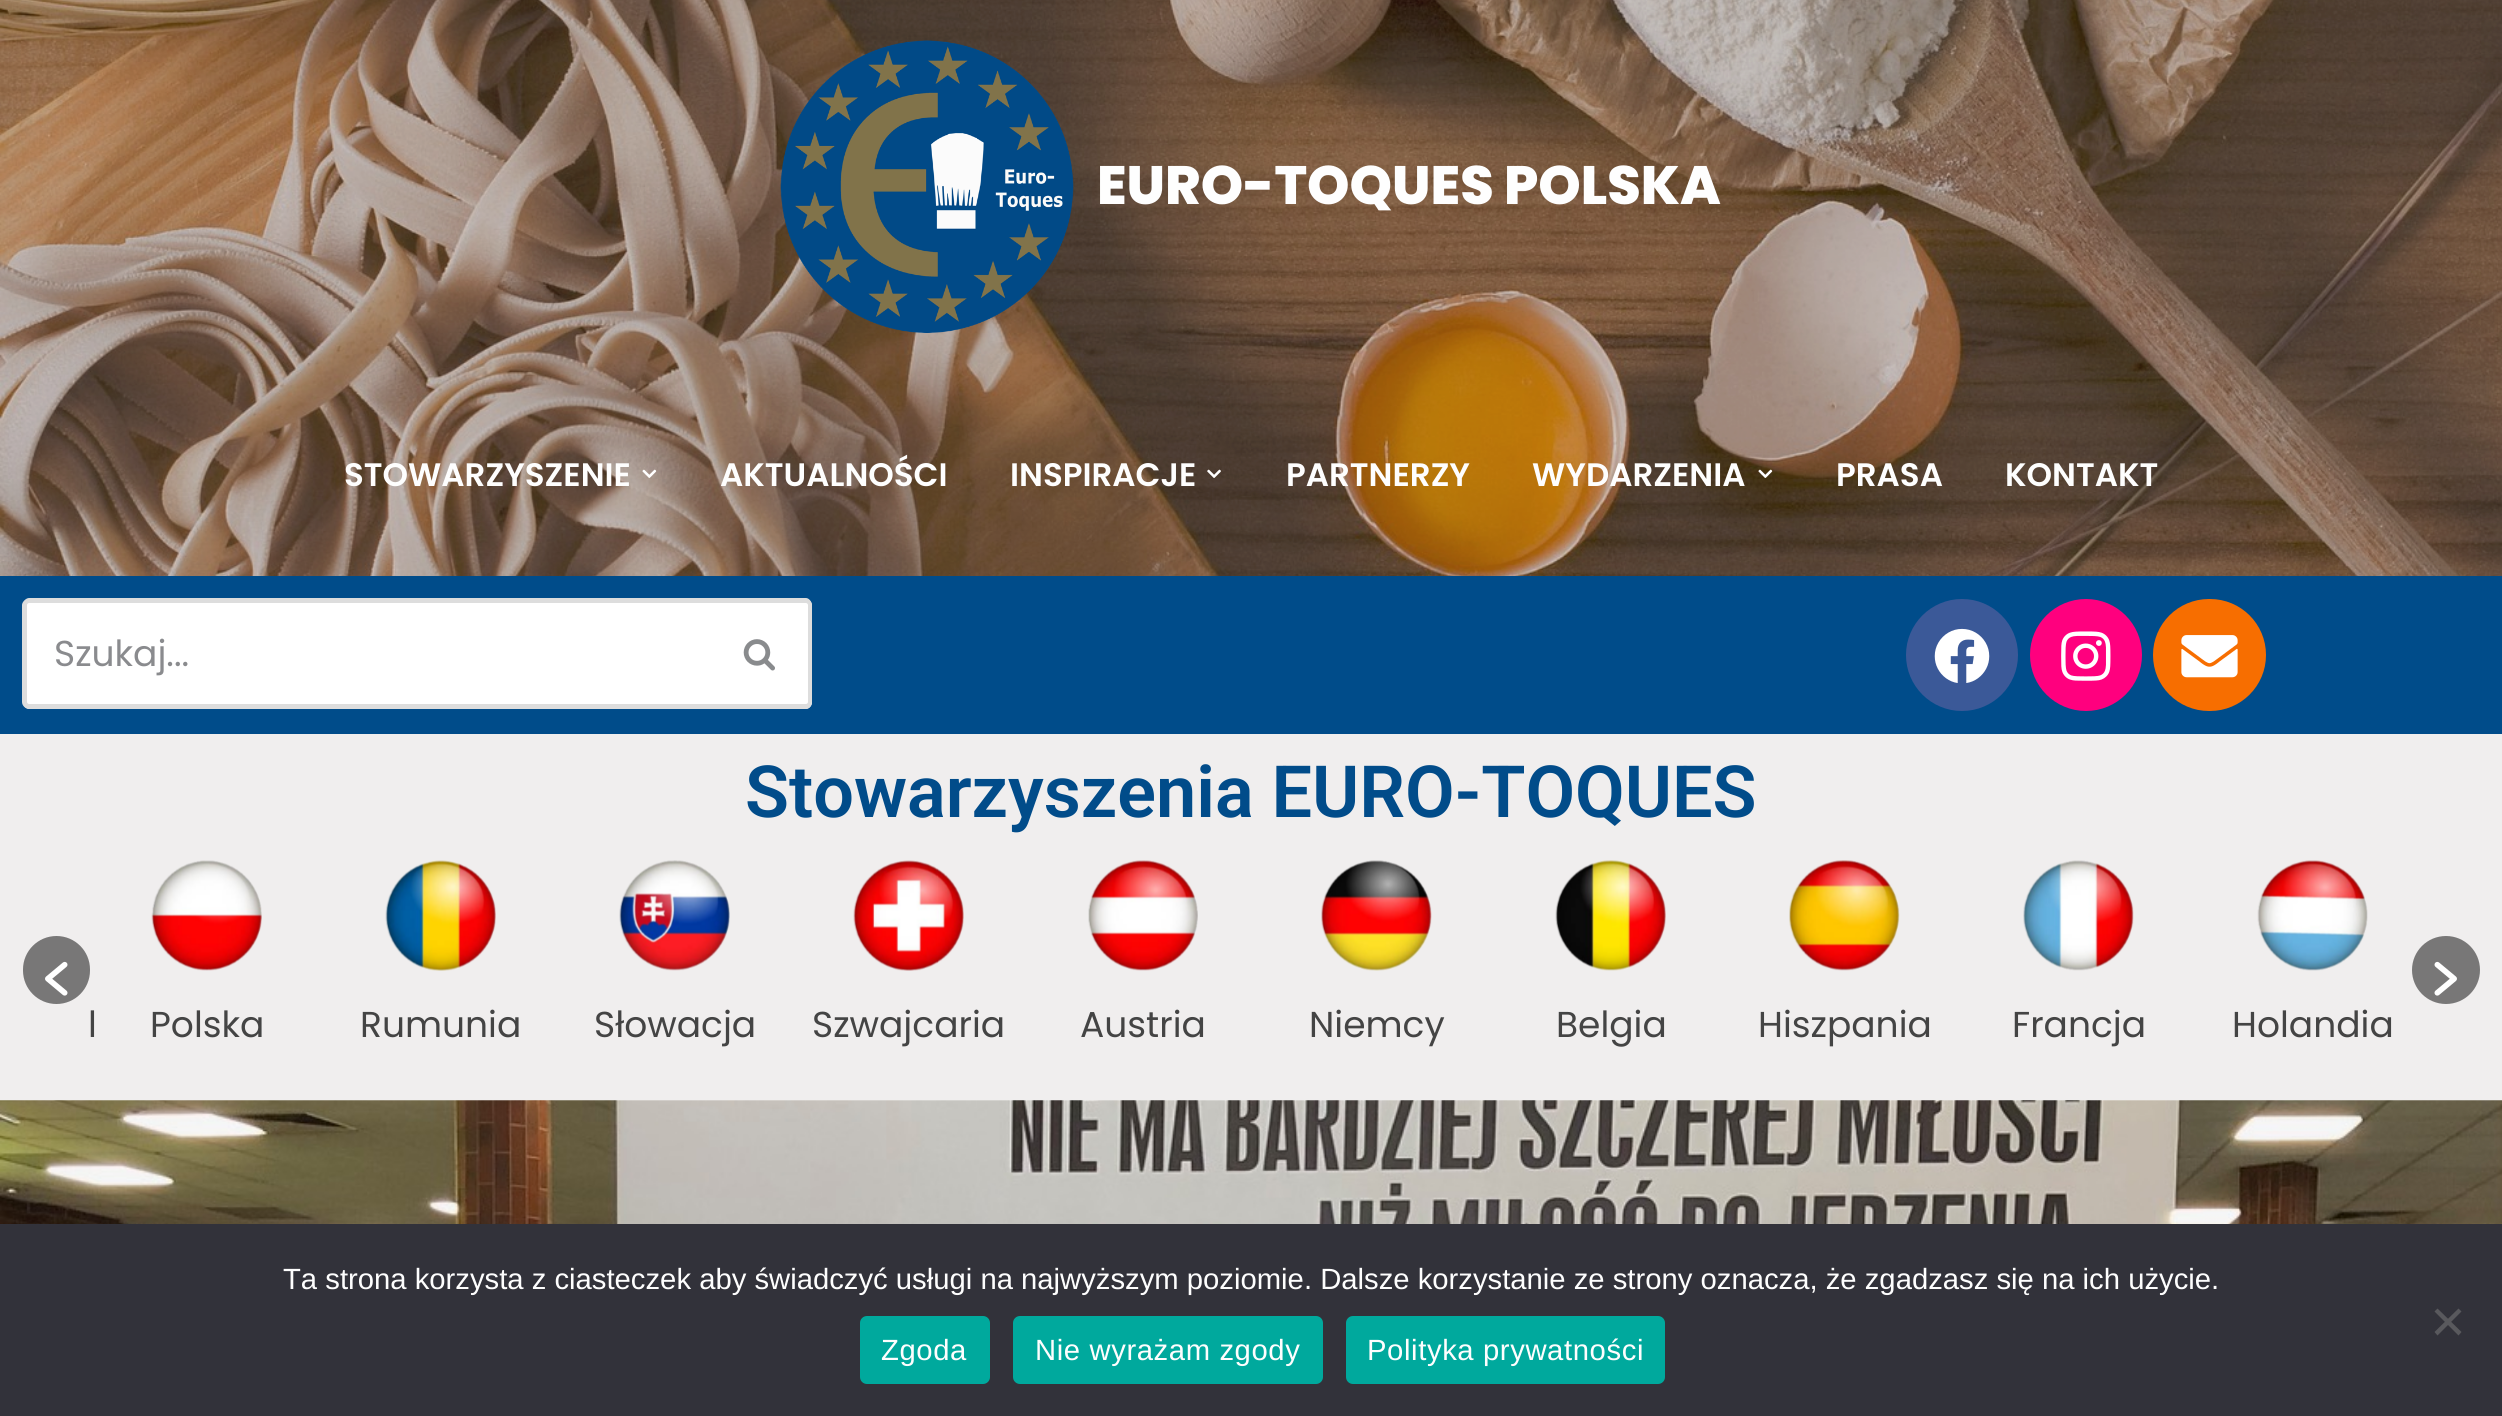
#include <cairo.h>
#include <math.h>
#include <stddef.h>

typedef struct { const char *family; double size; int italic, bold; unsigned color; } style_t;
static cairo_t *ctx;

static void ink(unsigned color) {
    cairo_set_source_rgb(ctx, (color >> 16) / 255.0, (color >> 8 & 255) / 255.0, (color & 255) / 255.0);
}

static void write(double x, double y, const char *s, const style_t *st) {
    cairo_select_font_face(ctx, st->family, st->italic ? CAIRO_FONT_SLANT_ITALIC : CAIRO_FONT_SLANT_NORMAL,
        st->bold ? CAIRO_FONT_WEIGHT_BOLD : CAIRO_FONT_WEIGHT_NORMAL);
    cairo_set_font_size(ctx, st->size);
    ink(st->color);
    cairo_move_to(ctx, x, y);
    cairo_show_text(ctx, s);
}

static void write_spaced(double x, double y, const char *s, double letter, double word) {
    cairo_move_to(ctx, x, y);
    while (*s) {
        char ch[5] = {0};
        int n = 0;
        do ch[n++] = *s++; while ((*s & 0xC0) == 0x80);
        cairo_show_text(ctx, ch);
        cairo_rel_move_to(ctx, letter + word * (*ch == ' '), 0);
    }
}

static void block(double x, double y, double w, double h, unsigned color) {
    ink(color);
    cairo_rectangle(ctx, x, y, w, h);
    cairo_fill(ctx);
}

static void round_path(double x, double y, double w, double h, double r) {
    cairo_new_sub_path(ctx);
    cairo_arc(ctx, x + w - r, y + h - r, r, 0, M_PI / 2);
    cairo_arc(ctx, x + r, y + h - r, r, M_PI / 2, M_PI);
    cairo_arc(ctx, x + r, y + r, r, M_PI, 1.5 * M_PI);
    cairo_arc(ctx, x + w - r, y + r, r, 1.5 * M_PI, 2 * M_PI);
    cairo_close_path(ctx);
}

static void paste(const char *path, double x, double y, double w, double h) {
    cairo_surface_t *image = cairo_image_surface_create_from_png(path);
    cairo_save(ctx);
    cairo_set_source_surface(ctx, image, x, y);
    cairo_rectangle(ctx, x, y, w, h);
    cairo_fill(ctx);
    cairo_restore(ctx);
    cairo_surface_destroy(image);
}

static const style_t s1 = {"Poppins ExtraBold", 54, 0, 0, 0xfefefe};
static const style_t s2 = {"Poppins SemiBold", 32.5, 0, 0, 0xfefefe};
static const style_t s3 = {"Poppins", 36, 0, 0, 0x8a8b8e};
static const style_t s4 = {"Roboto SemiBold", 72, 0, 0, 0x014c8a};
static const style_t s5 = {"Poppins", 36, 0, 0, 0x444444};
static const style_t s6 = {"Liberation Sans", 29.25, 0, 0, 0xfefefe};

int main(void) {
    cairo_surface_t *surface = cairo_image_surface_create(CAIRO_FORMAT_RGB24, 2502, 1416);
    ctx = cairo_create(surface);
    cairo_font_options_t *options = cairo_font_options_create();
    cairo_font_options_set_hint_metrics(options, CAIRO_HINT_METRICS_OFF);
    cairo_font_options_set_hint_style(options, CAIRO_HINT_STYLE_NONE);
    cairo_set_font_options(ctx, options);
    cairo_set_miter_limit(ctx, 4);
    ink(0xffffff);
    cairo_paint(ctx);
    paste("pic1.png", 0, 0, 2502, 576);
    cairo_set_source_rgba(ctx, 0.212, 0.169, 0.169, 0.12);
    cairo_rectangle(ctx, 0, 0, 2502, 374);
    cairo_fill(ctx);
    paste("pic2.png", 780, 40, 294, 293);
    write(1097, 204, "EURO-TOQUES POLSKA", &s1);
    cairo_set_source_rgba(ctx, 0.212, 0.169, 0.169, 0.12);
    cairo_rectangle(ctx, 0, 374, 2502, 202);
    cairo_fill(ctx);
    write(344, 486, "STOWARZYSZENIE", &s2);
    paste("pic3.png", 642, 469, 15, 9);
    write(720, 486, "AKTUALNOŚCI", &s2);
    write(1010, 486, "INSPIRACJE", &s2);
    paste("pic4.png", 1207, 469, 14, 9);
    write(1286, 486, "PARTNERZY", &s2);
    write(1532, 486, "WYDARZENIA", &s2);
    paste("pic5.png", 1758, 469, 15, 9);
    write(1836, 486, "PRASA", &s2);
    write(2005, 486, "KONTAKT", &s2);
    block(0, 576, 2502, 158, 0x004c8a);
    ink(0xffffff);
    cairo_new_path(ctx);
    cairo_move_to(ctx, 30, 599);
    cairo_line_to(ctx, 711, 599);
    cairo_line_to(ctx, 711, 709);
    cairo_line_to(ctx, 30, 709);
    cairo_curve_to(ctx, 26, 709, 23, 706, 23, 702);
    cairo_line_to(ctx, 23, 606);
    cairo_curve_to(ctx, 23, 602, 26, 599, 30, 599);
    cairo_close_path(ctx);
    cairo_fill(ctx);
    ink(0xdddddd);
    cairo_set_fill_rule(ctx, CAIRO_FILL_RULE_EVEN_ODD);
    cairo_new_path(ctx);
    cairo_move_to(ctx, 29, 598);
    cairo_line_to(ctx, 711, 598);
    cairo_line_to(ctx, 711, 709);
    cairo_line_to(ctx, 29, 709);
    cairo_curve_to(ctx, 26, 709, 22, 706, 22, 702);
    cairo_line_to(ctx, 22, 605);
    cairo_curve_to(ctx, 22, 602, 26, 598, 29, 598);
    cairo_close_path(ctx);
    cairo_move_to(ctx, 29, 603);
    cairo_line_to(ctx, 711, 603);
    cairo_line_to(ctx, 711, 704);
    cairo_line_to(ctx, 29, 704);
    cairo_curve_to(ctx, 28, 704, 27, 703, 27, 702);
    cairo_line_to(ctx, 27, 605);
    cairo_curve_to(ctx, 27, 604, 28, 603, 29, 603);
    cairo_close_path(ctx);
    cairo_fill(ctx);
    write(54, 666, "Szukaj...", &s3);
    ink(0xffffff);
    cairo_new_path(ctx);
    cairo_move_to(ctx, 711, 599);
    cairo_line_to(ctx, 805, 599);
    cairo_curve_to(ctx, 809, 599, 812, 602, 812, 606);
    cairo_line_to(ctx, 812, 702);
    cairo_curve_to(ctx, 812, 706, 809, 709, 805, 709);
    cairo_line_to(ctx, 711, 709);
    cairo_close_path(ctx);
    cairo_fill(ctx);
    ink(0xdddddd);
    cairo_new_path(ctx);
    cairo_move_to(ctx, 711, 598);
    cairo_line_to(ctx, 806, 598);
    cairo_curve_to(ctx, 809, 598, 812, 602, 812, 605);
    cairo_line_to(ctx, 812, 702);
    cairo_curve_to(ctx, 812, 706, 809, 709, 806, 709);
    cairo_line_to(ctx, 711, 709);
    cairo_close_path(ctx);
    cairo_move_to(ctx, 711, 603);
    cairo_line_to(ctx, 806, 603);
    cairo_curve_to(ctx, 807, 603, 808, 604, 808, 605);
    cairo_line_to(ctx, 808, 702);
    cairo_curve_to(ctx, 808, 703, 807, 704, 806, 704);
    cairo_line_to(ctx, 711, 704);
    cairo_close_path(ctx);
    cairo_fill(ctx);
    paste("pic6.png", 743, 639, 32, 32);
    ink(0x3b5998);
    cairo_arc(ctx, 1962, 655, 56, 0, 2 * M_PI);
    cairo_fill(ctx);
    paste("pic7.png", 1934, 628, 56, 55);
    ink(0xff007e);
    cairo_arc(ctx, 2086, 655, 56, 0, 2 * M_PI);
    cairo_fill(ctx);
    paste("pic8.png", 2061, 631, 50, 50);
    ink(0xf76e00);
    round_path(2153, 599, 113, 112, 56);
    cairo_fill(ctx);
    paste("pic9.png", 2181, 635, 57, 43);
    block(0, 734, 2502, 366, 0xf0eeee);
    write(745, 817, "Stowarzyszenia EURO-TOQUES", &s4);
    ink(0x787777);
    round_path(23, 936, 67, 68, 33.5);
    cairo_fill(ctx);
    paste("pic10.png", 45, 961, 23, 35);
    cairo_arc(ctx, 2446, 970, 34, 0, 2 * M_PI);
    cairo_fill(ctx);
    paste("pic11.png", 2434, 961, 23, 35);
    write(88, 1037, "l", &s5);
    paste("pic12.png", 151, 860, 111, 111);
    write(150, 1037, "Polska", &s5);
    paste("pic13.png", 385, 860, 111, 111);
    write(360, 1037, "Rumunia", &s5);
    paste("pic14.png", 619, 860, 111, 111);
    write(594, 1037, "Słowacja", &s5);
    paste("pic15.png", 853, 860, 111, 111);
    write(812, 1037, "Szwajcaria", &s5);
    paste("pic16.png", 1088, 860, 110, 111);
    write(1080, 1037, "Austria", &s5);
    paste("pic17.png", 1321, 860, 111, 111);
    write(1309, 1037, "Niemcy", &s5);
    paste("pic18.png", 1555, 860, 111, 111);
    write(1556, 1037, "Belgia", &s5);
    paste("pic19.png", 1789, 860, 111, 111);
    write(1758, 1037, "Hiszpania", &s5);
    paste("pic20.png", 2023, 860, 111, 111);
    write(2012, 1037, "Francja", &s5);
    paste("pic21.png", 2257, 860, 111, 111);
    write(2232, 1037, "Holandia", &s5);
    paste("pic22.png", 0, 1100, 2502, 124);
    block(0, 1224, 2502, 192, 0x32323a);
    write(283, 1289, "Ta strona korzysta z ciasteczek aby świadczyć usługi na najwyższym poziomie. Dalsze korzystanie ze strony oznacza, że zgadzasz się na ich użycie.", &s6);
    ink(0x59595d);
    cairo_set_fill_rule(ctx, CAIRO_FILL_RULE_WINDING);
    cairo_new_path(ctx);
    cairo_move_to(ctx, 2458.5, 1308.5);
    cairo_line_to(ctx, 2461.5, 1311.5);
    cairo_line_to(ctx, 2437.5, 1335.5);
    cairo_line_to(ctx, 2434.5, 1332);
    cairo_close_path(ctx);
    cairo_fill(ctx);
    cairo_new_path(ctx);
    cairo_move_to(ctx, 2434.5, 1311.5);
    cairo_line_to(ctx, 2437.5, 1308.5);
    cairo_line_to(ctx, 2461.5, 1332);
    cairo_line_to(ctx, 2458.5, 1335.5);
    cairo_close_path(ctx);
    cairo_fill(ctx);
    ink(0x00a99d);
    round_path(860, 1316, 130, 68, 7);
    cairo_fill(ctx);
    ink(0xfefefe);
    write_spaced(881, 1360, "Zgoda", 0.6, 0);
    ink(0x00a99d);
    round_path(1013, 1316, 310, 68, 7);
    cairo_fill(ctx);
    ink(0xfefefe);
    write_spaced(1035, 1360, "Nie wyrażam zgody", 0.6, 0);
    ink(0x00a99d);
    round_path(1346, 1316, 319, 68, 7);
    cairo_fill(ctx);
    ink(0xfefefe);
    write_spaced(1367, 1360, "Polityka prywatności", 0.6, 0);
    cairo_surface_write_to_png(surface, "screenshot.png");
    cairo_font_options_destroy(options);
    cairo_destroy(ctx);
    cairo_surface_destroy(surface);
    return 0;
}
